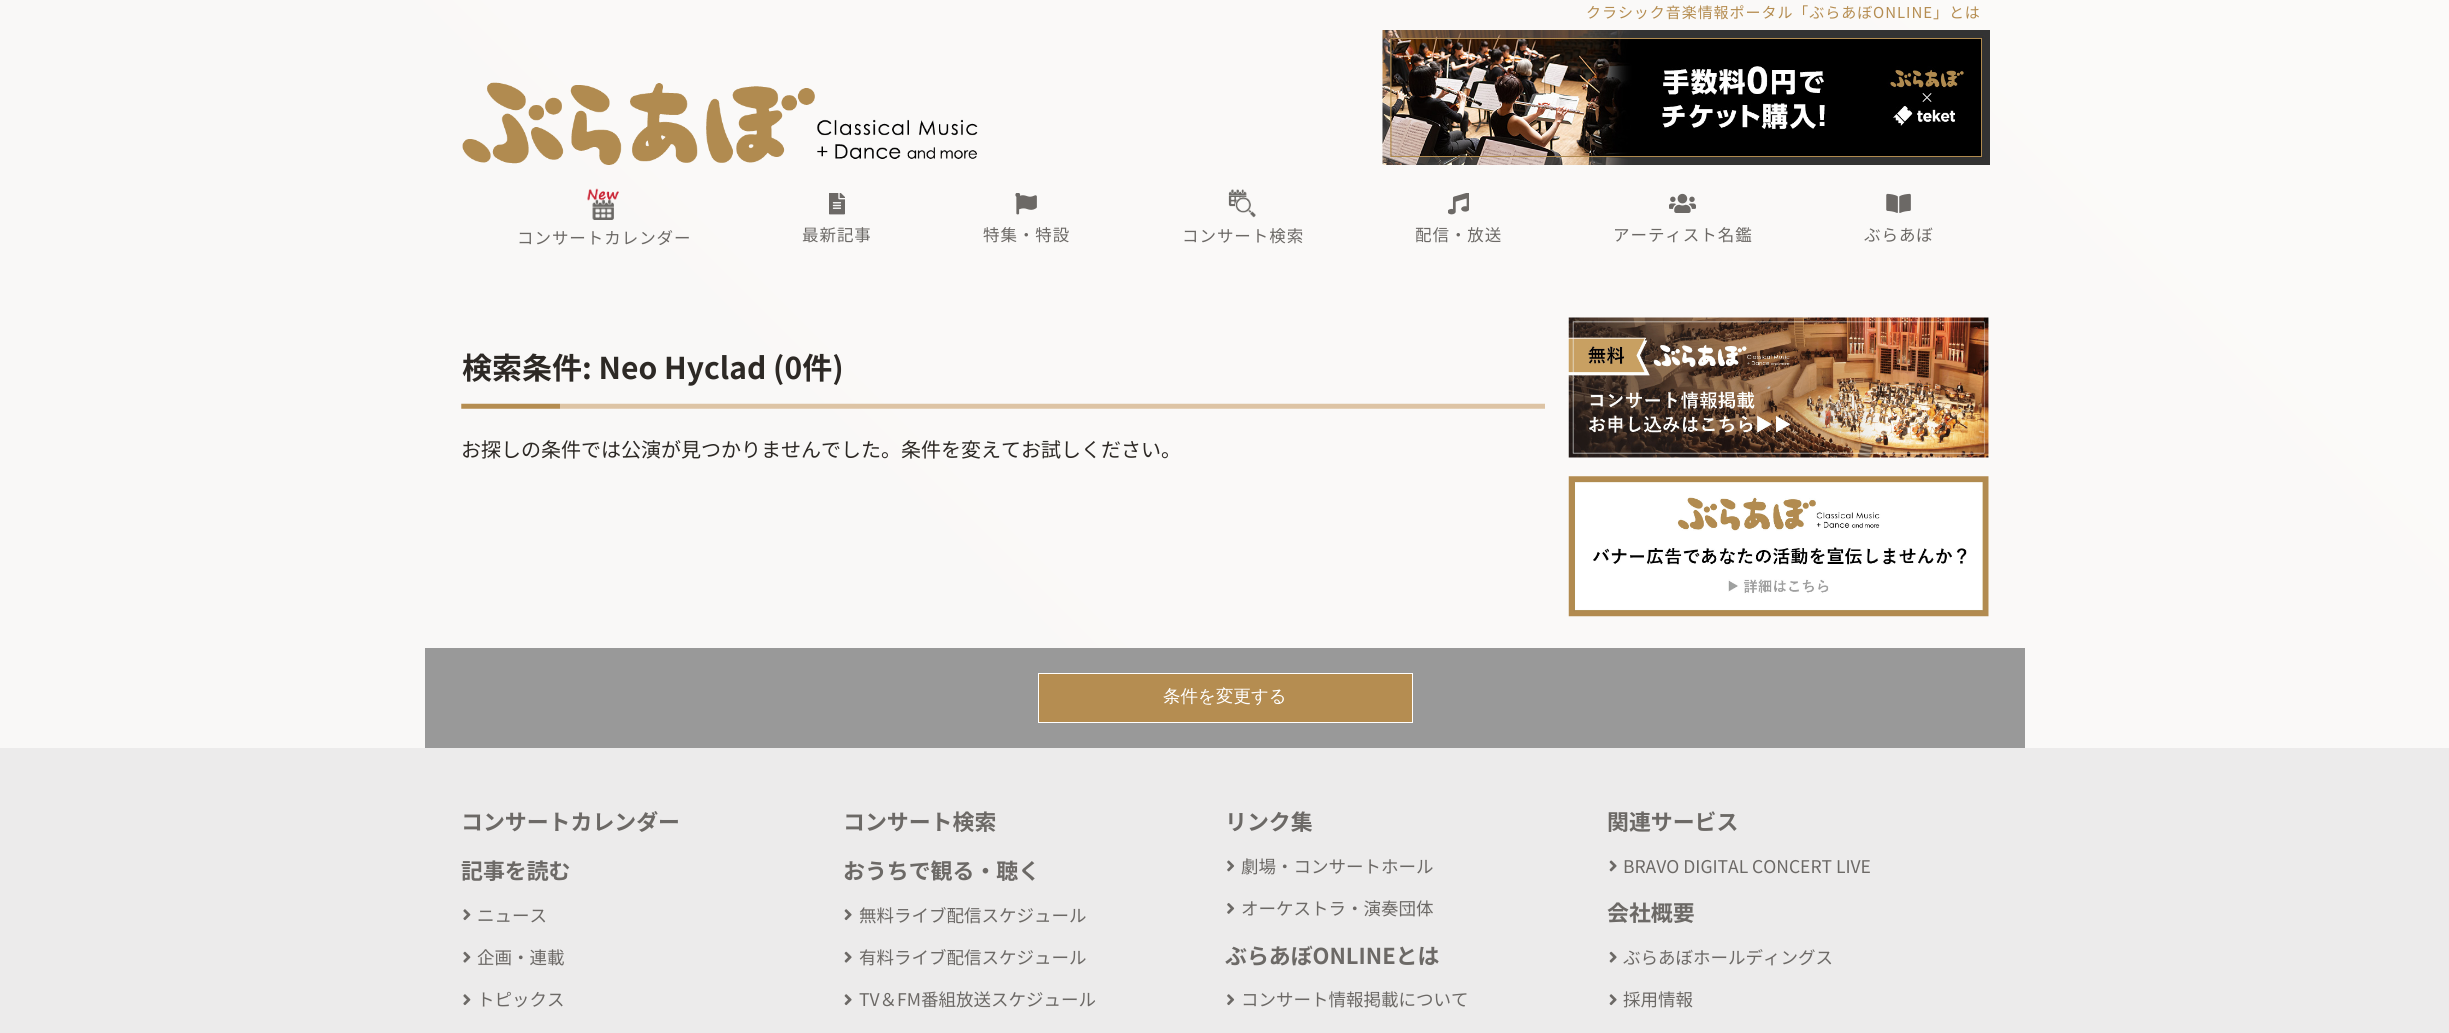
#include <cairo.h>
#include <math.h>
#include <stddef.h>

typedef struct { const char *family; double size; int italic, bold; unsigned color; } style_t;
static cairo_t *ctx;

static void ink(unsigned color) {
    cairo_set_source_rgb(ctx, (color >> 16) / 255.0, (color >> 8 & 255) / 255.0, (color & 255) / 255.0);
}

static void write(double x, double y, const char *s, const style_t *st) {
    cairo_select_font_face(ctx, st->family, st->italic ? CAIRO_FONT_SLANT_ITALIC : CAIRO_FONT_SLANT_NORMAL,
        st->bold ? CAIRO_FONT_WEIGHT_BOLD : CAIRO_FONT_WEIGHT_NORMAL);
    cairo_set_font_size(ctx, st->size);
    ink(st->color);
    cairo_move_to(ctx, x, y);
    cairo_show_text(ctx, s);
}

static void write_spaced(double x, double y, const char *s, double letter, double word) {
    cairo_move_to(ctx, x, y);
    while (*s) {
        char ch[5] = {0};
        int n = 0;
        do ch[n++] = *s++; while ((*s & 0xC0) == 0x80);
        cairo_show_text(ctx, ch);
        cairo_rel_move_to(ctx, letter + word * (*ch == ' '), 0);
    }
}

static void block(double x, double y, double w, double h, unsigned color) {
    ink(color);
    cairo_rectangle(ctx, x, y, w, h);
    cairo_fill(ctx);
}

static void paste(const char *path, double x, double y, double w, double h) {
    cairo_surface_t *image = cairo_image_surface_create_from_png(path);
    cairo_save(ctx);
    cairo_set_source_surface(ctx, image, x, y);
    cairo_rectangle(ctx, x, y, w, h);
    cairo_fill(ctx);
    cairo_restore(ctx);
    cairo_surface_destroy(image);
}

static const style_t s1 = {"Noto Sans JP", 30, 0, 1, 0x2d2925};
static const style_t s2 = {"Noto Sans JP", 20, 0, 0, 0x2d2925};
static const style_t s3 = {"WenQuanYi Zen Hei Medium", 17.5, 0, 0, 0xffffff};
static const style_t s4 = {"Noto Sans JP", 21.9, 0, 1, 0x6c6966};
static const style_t s5 = {"Noto Sans JP", 17.5, 0, 0, 0x6c6966};

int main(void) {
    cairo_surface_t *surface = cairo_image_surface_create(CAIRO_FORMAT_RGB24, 2449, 1033);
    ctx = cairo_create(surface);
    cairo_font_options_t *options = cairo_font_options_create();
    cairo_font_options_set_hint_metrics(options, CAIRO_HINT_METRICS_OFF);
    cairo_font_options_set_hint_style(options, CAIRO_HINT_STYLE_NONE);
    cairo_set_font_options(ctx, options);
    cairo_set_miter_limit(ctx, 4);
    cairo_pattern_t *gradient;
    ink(0xffffff);
    cairo_paint(ctx);
    gradient = cairo_pattern_create_linear(2226, -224, 224, 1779);
    cairo_pattern_add_color_stop_rgba(gradient, 0, 0.984, 0.98, 0.976, 1);
    cairo_pattern_add_color_stop_rgba(gradient, 1, 0.973, 0.969, 0.965, 1);
    cairo_set_source(ctx, gradient);
    cairo_pattern_destroy(gradient);
    cairo_rectangle(ctx, 0, 0, 2449, 748);
    cairo_fill(ctx);
    cairo_select_font_face(ctx, "Noto Sans JP", CAIRO_FONT_SLANT_NORMAL, CAIRO_FONT_WEIGHT_NORMAL);
    cairo_set_font_size(ctx, 15);
    ink(0xb58d51);
    write_spaced(1586, 18, "クラシック音楽情報ポータル「ぶらあぼONLINE」とは", 0.95, 0);
    paste("pic1.png", 462, 82, 516, 83);
    paste("pic2.png", 1382, 30, 608, 135);
    paste("pic3.png", 587, 188, 32, 32);
    cairo_set_font_size(ctx, 16.5);
    ink(0x6c6966);
    write_spaced(517, 244, "コンサートカレンダー", 0.95, 0);
    paste("pic4.png", 829, 193, 16, 22);
    write_spaced(802, 241, "最新記事", 0.95, 0);
    paste("pic5.png", 1015, 193, 22, 22);
    write_spaced(983, 241, "特集・特設", 0.95, 0);
    paste("pic6.png", 1228, 189, 28, 29);
    write_spaced(1182, 242, "コンサート検索", 0.95, 0);
    paste("pic7.png", 1448, 193, 21, 22);
    write_spaced(1415, 241, "配信・放送", 0.95, 0);
    paste("pic8.png", 1669, 193, 27, 20);
    write_spaced(1613, 241, "アーティスト名鑑", 0.95, 0);
    paste("pic9.png", 1886, 193, 25, 20);
    write_spaced(1864, 241, "ぶらあぼ", 0.95, 0);
    paste("pic10.png", 461, 403, 1084, 6);
    write(462, 379, "検索条件: Neo Hyclad (0件)", &s1);
    write(461, 457, "お探しの条件では公演が見つかりませんでした。条件を変えてお試しください。", &s2);
    block(425, 648, 1600, 100, 0x999999);
    ink(0xb58d51);
    cairo_rectangle(ctx, 1038.5, 673.5, 374, 49);
    cairo_fill_preserve(ctx);
    ink(0xffffff);
    cairo_set_line_width(ctx, 1);
    cairo_stroke(ctx);
    write(1163, 702, "条件を変更する", &s3);
    paste("pic11.png", 1568, 317, 421, 141);
    paste("pic12.png", 1568, 476, 421, 141);
    block(0, 748, 2449, 285, 0xecebeb);
    write(461, 830, "コンサートカレンダー", &s4);
    write(461, 879, "記事を読む", &s4);
    paste("pic13.png", 463, 909, 8, 12);
    write(477, 922, "ニュース", &s5);
    paste("pic14.png", 463, 951, 8, 12);
    write(477, 964, "企画・連載", &s5);
    paste("pic13.png", 463, 994, 8, 12);
    write(477, 1006, "トピックス", &s5);
    write(843, 830, "コンサート検索", &s4);
    write(843, 879, "おうちで観る・聴く", &s4);
    paste("pic15.png", 844, 909, 8, 12);
    write(859, 922, "無料ライブ配信スケジュール", &s5);
    paste("pic16.png", 844, 951, 8, 12);
    write(859, 964, "有料ライブ配信スケジュール", &s5);
    paste("pic15.png", 844, 994, 8, 12);
    write(859, 1006, "TV＆FM番組放送スケジュール", &s5);
    write(1225, 830, "リンク集", &s4);
    paste("pic17.png", 1227, 860, 8, 12);
    write(1241, 873, "劇場・コンサートホール", &s5);
    paste("pic18.png", 1227, 903, 8, 11);
    write(1241, 915, "オーケストラ・演奏団体", &s5);
    write(1225, 964, "ぶらあぼONLINEとは", &s4);
    paste("pic19.png", 1227, 994, 8, 12);
    write(1241, 1006, "コンサート情報掲載について", &s5);
    write(1607, 830, "関連サービス", &s4);
    paste("pic20.png", 1609, 860, 8, 12);
    write(1623, 873, "BRAVO DIGITAL CONCERT LIVE", &s5);
    write(1607, 921, "会社概要", &s4);
    paste("pic16.png", 1609, 951, 8, 12);
    write(1623, 964, "ぶらあぼホールディングス", &s5);
    paste("pic15.png", 1609, 994, 8, 12);
    write(1623, 1006, "採用情報", &s5);
    cairo_surface_write_to_png(surface, "screenshot.png");
    cairo_font_options_destroy(options);
    cairo_destroy(ctx);
    cairo_surface_destroy(surface);
    return 0;
}
